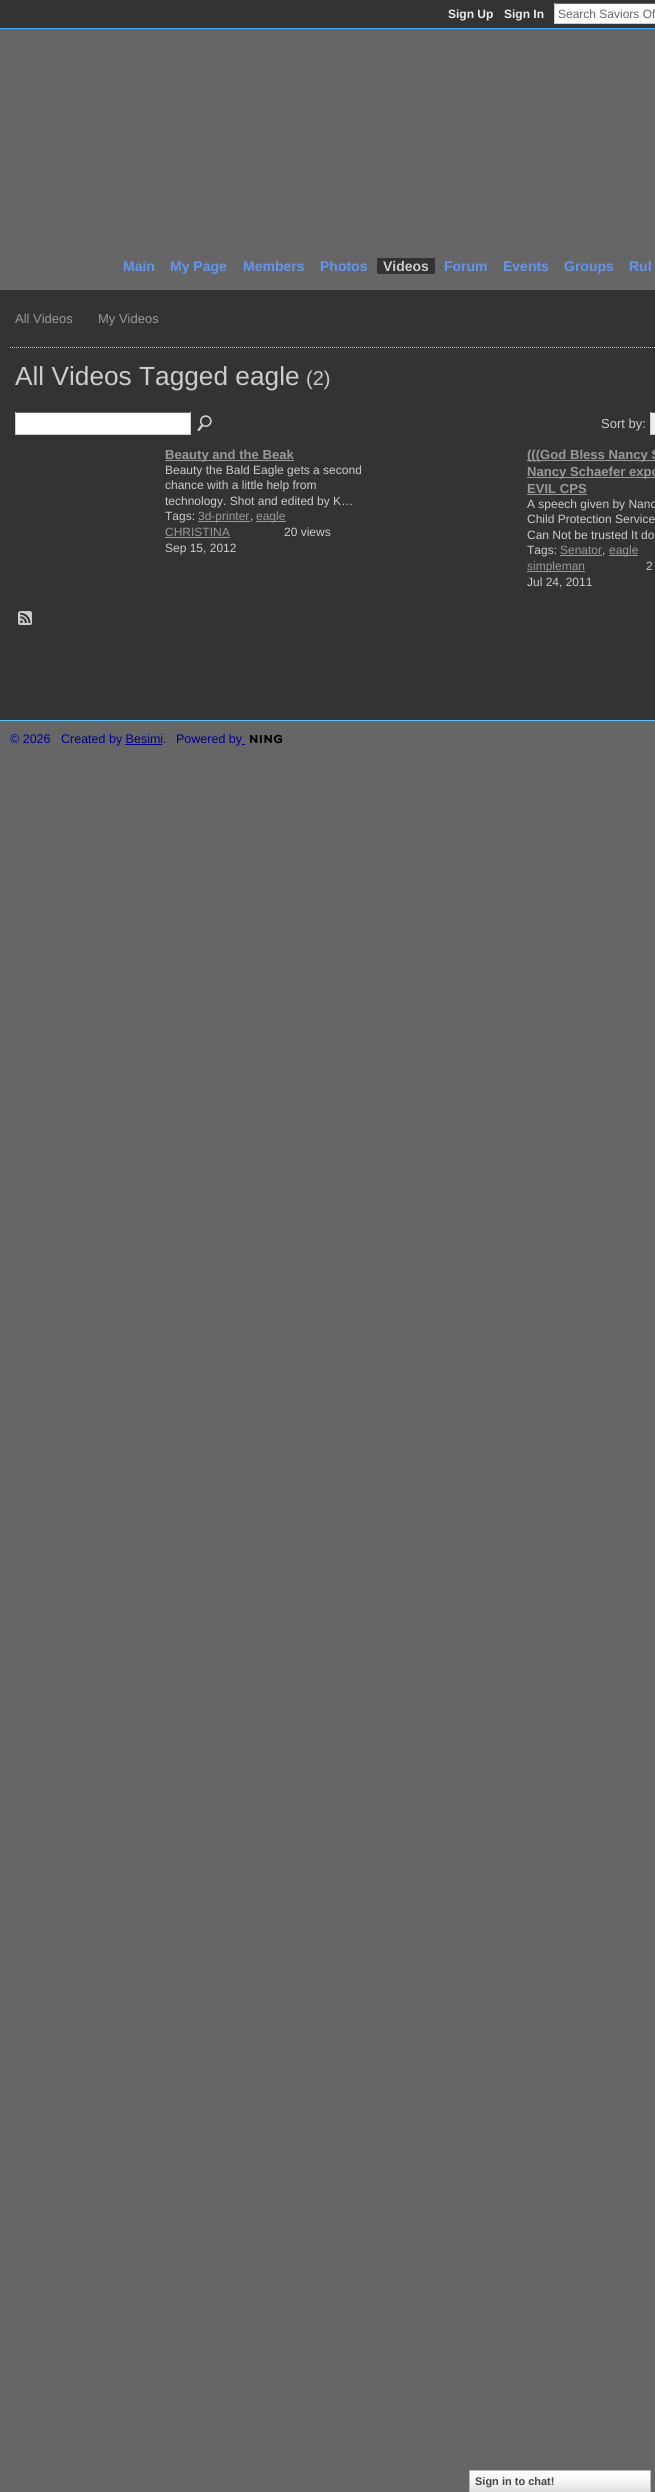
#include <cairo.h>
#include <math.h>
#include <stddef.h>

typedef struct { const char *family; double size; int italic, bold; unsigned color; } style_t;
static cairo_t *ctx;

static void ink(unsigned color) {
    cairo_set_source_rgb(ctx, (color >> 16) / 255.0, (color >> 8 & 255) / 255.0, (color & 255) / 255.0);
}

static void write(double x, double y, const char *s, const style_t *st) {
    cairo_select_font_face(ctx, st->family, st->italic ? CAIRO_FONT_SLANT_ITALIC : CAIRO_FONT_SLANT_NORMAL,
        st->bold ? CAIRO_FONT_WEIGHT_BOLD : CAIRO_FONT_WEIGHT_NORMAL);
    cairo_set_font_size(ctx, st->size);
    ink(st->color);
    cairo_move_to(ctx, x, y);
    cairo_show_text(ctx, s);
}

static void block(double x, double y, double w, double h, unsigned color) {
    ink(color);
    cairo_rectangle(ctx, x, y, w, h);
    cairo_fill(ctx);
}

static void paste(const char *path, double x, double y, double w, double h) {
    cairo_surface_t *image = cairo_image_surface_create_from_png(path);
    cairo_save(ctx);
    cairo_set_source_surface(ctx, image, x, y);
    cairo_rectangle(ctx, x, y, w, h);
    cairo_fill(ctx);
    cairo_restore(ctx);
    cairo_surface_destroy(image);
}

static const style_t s1 = {"Liberation Sans", 12, 0, 1, 0xeeeeee};
static const style_t s2 = {"Liberation Sans", 12, 0, 0, 0x666666};
static const style_t s3 = {"Liberation Sans", 14, 0, 1, 0x6495ed};
static const style_t s4 = {"Liberation Sans", 14, 0, 1, 0xcccccc};
static const style_t s5 = {"Liberation Sans", 13, 0, 0, 0x999999};
static const style_t s6 = {"Liberation Sans", 26.25, 0, 0, 0xcccccc};
static const style_t s7 = {"Liberation Sans", 20, 0, 0, 0xcccccc};
static const style_t s8 = {"Liberation Sans", 13, 0, 0, 0xcccccc};
static const style_t s9 = {"Liberation Sans", 13.1, 0, 1, 0x999999};
static const style_t s10 = {"Liberation Sans", 12, 0, 0, 0xcccccc};
static const style_t s11 = {"Liberation Sans", 12, 0, 0, 0x999999};
static const style_t s12 = {"Liberation Sans", 12.5, 0, 0, 0x00008b};
static const style_t s13 = {"Liberation Sans", 11, 0, 1, 0x454545};

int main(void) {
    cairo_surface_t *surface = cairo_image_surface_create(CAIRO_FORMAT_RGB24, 655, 2492);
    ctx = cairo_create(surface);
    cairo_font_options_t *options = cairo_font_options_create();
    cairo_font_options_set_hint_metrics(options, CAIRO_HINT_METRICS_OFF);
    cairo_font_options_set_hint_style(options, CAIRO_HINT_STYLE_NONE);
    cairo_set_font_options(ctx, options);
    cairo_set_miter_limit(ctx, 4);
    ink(0x666666);
    cairo_paint(ctx);
    block(0, 0, 655, 28, 0x333333);
    block(0, 28, 655, 1, 0x3eb4ff);
    write(448, 18, "Sign Up", &s1);
    write(504, 18, "Sign In", &s1);
    block(555, 4, 100, 19, 0xffffff);
    block(554, 3, 101, 1, 0x666666);
    block(554, 23, 101, 1, 0xcccccc);
    block(554, 3, 1, 21, 0xcccccc);
    write(558, 18, "Search Saviors Of", &s2);
    write(123, 271, "Main", &s3);
    write(170, 271, "My Page", &s3);
    write(243, 271, "Members", &s3);
    write(320, 271, "Photos", &s3);
    block(377, 258, 58, 16, 0x333333);
    write(383, 271, "Videos", &s4);
    write(444, 271, "Forum", &s3);
    write(503, 271, "Events", &s3);
    write(564, 271, "Groups", &s3);
    write(629, 271, "Rul", &s3);
    block(0, 290, 655, 430, 0x333333);
    cairo_new_path(ctx);
    cairo_move_to(ctx, 10, 347.5);
    cairo_line_to(ctx, 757, 347.5);
    ink(0xccccbe);
    cairo_set_line_width(ctx, 1);
    cairo_set_dash(ctx, (double[]){1, 1}, 2, 0);
    cairo_stroke(ctx);
    write(15, 323, "All Videos", &s5);
    write(98, 323, "My Videos", &s5);
    write(15, 385, "All Videos Tagged eagle", &s6);
    write(306, 385, "(2)", &s7);
    block(16, 413, 174, 21, 0xffffff);
    block(15, 412, 176, 1, 0x666666);
    block(190, 412, 1, 23, 0xcccccc);
    block(15, 434, 176, 1, 0xcccccc);
    block(15, 412, 1, 23, 0xcccccc);
    paste("pic1.png", 197, 415, 15, 16);
    write(601, 428, "Sort by:", &s8);
    block(651, 412, 4, 23, 0xefefef);
    block(650, 412, 5, 1, 0x666666);
    block(650, 434, 5, 1, 0xcccccc);
    block(650, 412, 1, 23, 0xcccccc);
    block(165, 460, 129, 1, 0x999999);
    write(165, 459, "Beauty and the Beak", &s9);
    write(165, 474, "Beauty the Bald Eagle gets a second", &s10);
    write(165, 489, "chance with a little help from", &s10);
    write(165, 505, "technology. Shot and edited by K…", &s10);
    write(165, 520, "Tags:", &s10);
    block(198, 521, 52, 1, 0x999999);
    write(198, 520, "3d-printer", &s11);
    write(250, 520, ",", &s10);
    block(256, 521, 30, 1, 0x999999);
    write(256, 520, "eagle", &s11);
    write(165, 536, "CHRISTINA", &s11);
    block(165, 537, 65, 1, 0x999999);
    write(165, 552, "Sep 15, 2012", &s10);
    write(284, 536, "20 views", &s10);
    block(527, 460, 128, 1, 0x999999);
    write(527, 459, "(((God Bless Nancy S", &s9);
    block(527, 477, 128, 1, 0x999999);
    write(527, 476, "Nancy Schaefer expo", &s9);
    write(527, 493, "EVIL CPS", &s9);
    block(527, 494, 60, 1, 0x999999);
    write(527, 508, "A speech given by Nanc", &s10);
    write(527, 523, "Child Protection Service", &s10);
    write(527, 539, "Can Not be trusted It do", &s10);
    write(527, 554, "Tags:", &s10);
    write(560, 554, "Senator", &s11);
    block(560, 555, 42, 1, 0x999999);
    write(602, 554, ",", &s10);
    block(609, 555, 29, 1, 0x999999);
    write(609, 554, "eagle", &s11);
    block(527, 571, 58, 1, 0x999999);
    write(527, 570, "simpleman", &s11);
    write(527, 586, "Jul 24, 2011", &s10);
    write(646, 570, "2", &s10);
    paste("pic2.png", 18, 611, 14, 14);
    block(0, 720, 655, 1, 0x5ec0ff);
    write(10, 743, "© 2026", &s12);
    write(61, 743, "Created by Besimi.", &s12);
    write(176, 743, "Powered by", &s12);
    paste("pic3.png", 250, 734, 32, 10);
    block(125, 744, 37, 1, 0x00008b);
    block(242, 744, 3, 1, 0x00008b);
    paste("pic4.png", 470, 2471, 180, 21);
    cairo_rectangle(ctx, 469.5, 2470.5, 181, 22);
    ink(0xb7b7b7);
    cairo_set_dash(ctx, NULL, 0, 0);
    cairo_stroke(ctx);
    write(475, 2485, "Sign in to chat!", &s13);
    cairo_surface_write_to_png(surface, "screenshot.png");
    cairo_font_options_destroy(options);
    cairo_destroy(ctx);
    cairo_surface_destroy(surface);
    return 0;
}
